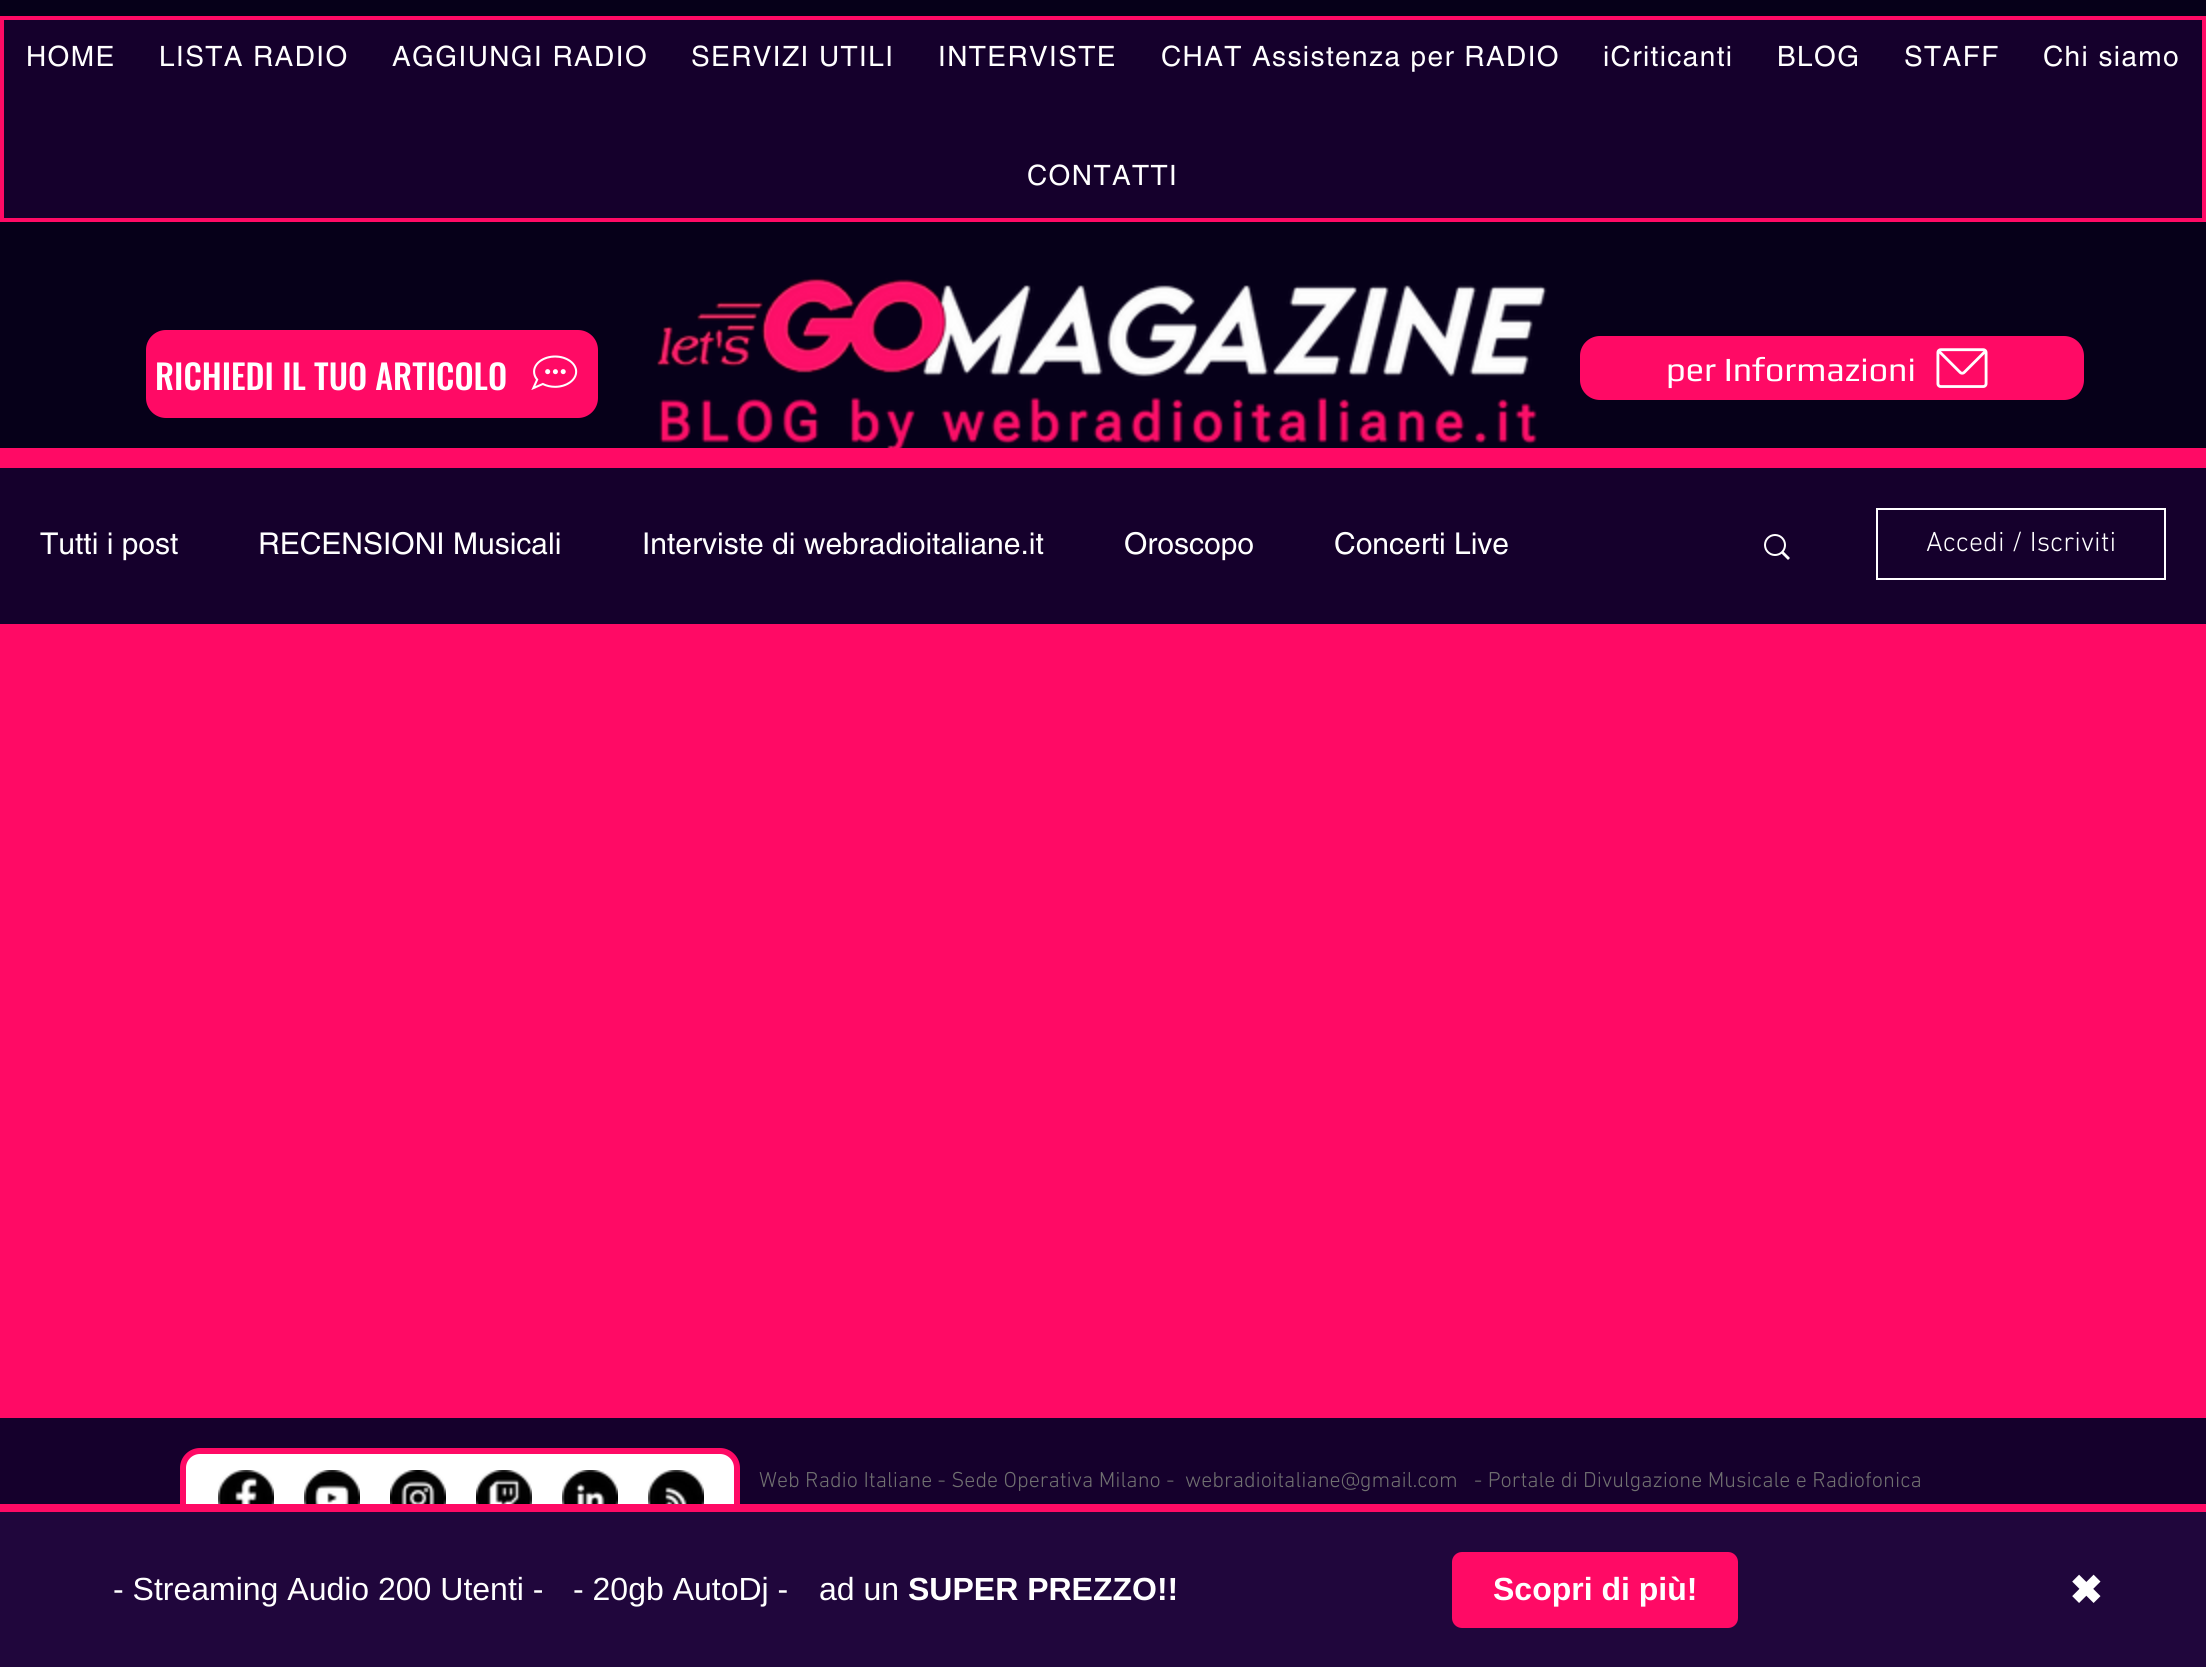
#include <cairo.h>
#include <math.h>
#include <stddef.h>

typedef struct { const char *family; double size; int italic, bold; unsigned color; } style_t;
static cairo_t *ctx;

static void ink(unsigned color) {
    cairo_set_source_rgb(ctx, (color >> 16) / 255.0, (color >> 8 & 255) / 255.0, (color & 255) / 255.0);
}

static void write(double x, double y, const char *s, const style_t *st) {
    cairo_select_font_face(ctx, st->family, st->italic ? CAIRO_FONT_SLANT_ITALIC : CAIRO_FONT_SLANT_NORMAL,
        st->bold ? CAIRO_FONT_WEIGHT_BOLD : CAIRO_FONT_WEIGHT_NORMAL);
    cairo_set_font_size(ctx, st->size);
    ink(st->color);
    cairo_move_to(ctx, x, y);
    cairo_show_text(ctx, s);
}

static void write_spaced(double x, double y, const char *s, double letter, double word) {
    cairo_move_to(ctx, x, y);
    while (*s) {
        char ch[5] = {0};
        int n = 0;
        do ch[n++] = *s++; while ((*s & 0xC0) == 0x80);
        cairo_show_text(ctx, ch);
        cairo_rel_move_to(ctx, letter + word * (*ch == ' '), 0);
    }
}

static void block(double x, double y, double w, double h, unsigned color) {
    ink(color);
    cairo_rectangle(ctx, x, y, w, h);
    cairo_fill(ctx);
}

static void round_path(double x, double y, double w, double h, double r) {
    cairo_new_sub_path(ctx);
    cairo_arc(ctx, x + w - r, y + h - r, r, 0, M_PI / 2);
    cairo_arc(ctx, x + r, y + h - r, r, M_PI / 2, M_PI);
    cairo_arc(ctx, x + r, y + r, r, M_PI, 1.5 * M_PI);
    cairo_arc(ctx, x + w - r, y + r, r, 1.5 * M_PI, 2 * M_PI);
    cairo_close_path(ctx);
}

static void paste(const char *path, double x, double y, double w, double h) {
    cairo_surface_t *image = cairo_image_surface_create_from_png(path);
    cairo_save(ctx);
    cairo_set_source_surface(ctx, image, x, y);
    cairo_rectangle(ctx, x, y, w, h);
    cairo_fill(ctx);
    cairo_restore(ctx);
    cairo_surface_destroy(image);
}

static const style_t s1 = {"Oswald Medium", 34, 0, 0, 0xffffff};
static const style_t s2 = {"Play", 34, 0, 0, 0xffffff};
static const style_t s3 = {"helvetica", 30, 0, 0, 0xffffff};
static const style_t s4 = {"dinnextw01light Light", 28, 0, 0, 0xffffff};
static const style_t s5 = {"dinnextw01light Light", 22, 0, 0, 0x707070};
static const style_t s6 = {"Liberation Sans", 32, 0, 0, 0xffffff};
static const style_t s7 = {"Liberation Sans", 32, 0, 1, 0xffffff};
static const style_t s8 = {"DejaVu Sans", 40, 0, 1, 0xffffff};

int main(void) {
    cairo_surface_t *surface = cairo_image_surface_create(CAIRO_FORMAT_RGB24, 2206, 1667);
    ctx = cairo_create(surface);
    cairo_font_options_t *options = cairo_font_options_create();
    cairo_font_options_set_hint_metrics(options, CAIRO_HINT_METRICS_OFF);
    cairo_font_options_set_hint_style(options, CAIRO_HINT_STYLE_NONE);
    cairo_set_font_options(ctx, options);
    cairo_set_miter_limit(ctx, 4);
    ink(0x060019);
    cairo_paint(ctx);
    ink(0x15002c);
    cairo_rectangle(ctx, 2, 18, 2202, 202);
    cairo_fill_preserve(ctx);
    ink(0xff0a65);
    cairo_set_line_width(ctx, 4);
    cairo_stroke(ctx);
    cairo_select_font_face(ctx, "helvetica", CAIRO_FONT_SLANT_NORMAL, CAIRO_FONT_WEIGHT_NORMAL);
    cairo_set_font_size(ctx, 28);
    ink(0xffffff);
    write_spaced(26, 66, "HOME", 1.4, 0);
    write_spaced(159, 66, "LISTA RADIO", 1.4, 0);
    write_spaced(392, 66, "AGGIUNGI RADIO", 1.4, 0);
    write_spaced(691, 66, "SERVIZI UTILI", 1.4, 0);
    write_spaced(938, 66, "INTERVISTE", 1.4, 0);
    write_spaced(1161, 66, "CHAT Assistenza per RADIO", 1.4, 0);
    write_spaced(1603, 66, "iCriticanti", 1.4, 0);
    write_spaced(1777, 66, "BLOG", 1.4, 0);
    write_spaced(1904, 66, "STAFF", 1.4, 0);
    write_spaced(2043, 66, "Chi siamo", 1.4, 0);
    write_spaced(1027, 185, "CONTATTI", 1.4, 0);
    ink(0xff0a65);
    round_path(146, 330, 452, 88, 20);
    cairo_fill(ctx);
    write(155, 390, "RICHIEDI IL TUO ARTICOLO", &s1);
    paste("pic1.png", 531, 355, 47, 35);
    paste("pic2.png", 657, 277, 890, 171);
    ink(0xff0a65);
    round_path(1580, 336, 504, 64, 20);
    cairo_fill(ctx);
    write(1666, 381, "per Informazioni", &s2);
    paste("pic3.png", 1936, 348, 52, 40);
    block(0, 448, 2206, 20, 0xff0a65);
    block(0, 624, 2206, 794, 0xff0a65);
    block(0, 468, 2206, 156, 0x15002c);
    write(40, 554, "Tutti i post", &s3);
    write(258, 554, "RECENSIONI Musicali", &s3);
    write(642, 554, "Interviste di webradioitaliane.it", &s3);
    write(1124, 554, "Oroscopo", &s3);
    write(1334, 554, "Concerti Live", &s3);
    paste("pic4.png", 1764, 534, 26, 26);
    cairo_rectangle(ctx, 1877, 509, 288, 70);
    cairo_set_line_width(ctx, 2);
    cairo_stroke(ctx);
    write(1926, 551, "Accedi / Iscriviti", &s4);
    block(0, 1418, 2206, 86, 0x15002c);
    ink(0xffffff);
    round_path(183, 1451, 554, 94, 17);
    cairo_fill_preserve(ctx);
    ink(0xff0a65);
    cairo_set_line_width(ctx, 6);
    cairo_stroke(ctx);
    paste("pic5.png", 218, 1470, 56, 34);
    paste("pic6.png", 304, 1470, 56, 34);
    paste("pic7.png", 390, 1470, 56, 34);
    paste("pic8.png", 476, 1470, 56, 34);
    paste("pic9.png", 562, 1470, 56, 34);
    paste("pic10.png", 648, 1470, 56, 34);
    write(759, 1487, "Web Radio Italiane - Sede Operativa Milano -", &s5);
    write(1185, 1487, "webradioitaliane@gmail.com", &s5);
    write(1474, 1487, "- Portale di Divulgazione Musicale e Radiofonica", &s5);
    block(0, 1512, 2206, 155, 0x20063c);
    block(0, 1504, 2206, 8, 0xff0a65);
    write(113, 1600, "- Streaming Audio 200 Utenti -", &s6);
    write(573, 1600, "- 20gb AutoDj -", &s6);
    write(819, 1600, "ad un", &s6);
    write(908, 1600, "SUPER PREZZO!!", &s7);
    ink(0xff0a65);
    round_path(1452, 1552, 286, 76, 10);
    cairo_fill(ctx);
    write(1493, 1600, "Scopri di più!", &s7);
    write(2069, 1604, "✖", &s8);
    cairo_surface_write_to_png(surface, "screenshot.png");
    cairo_font_options_destroy(options);
    cairo_destroy(ctx);
    cairo_surface_destroy(surface);
    return 0;
}
